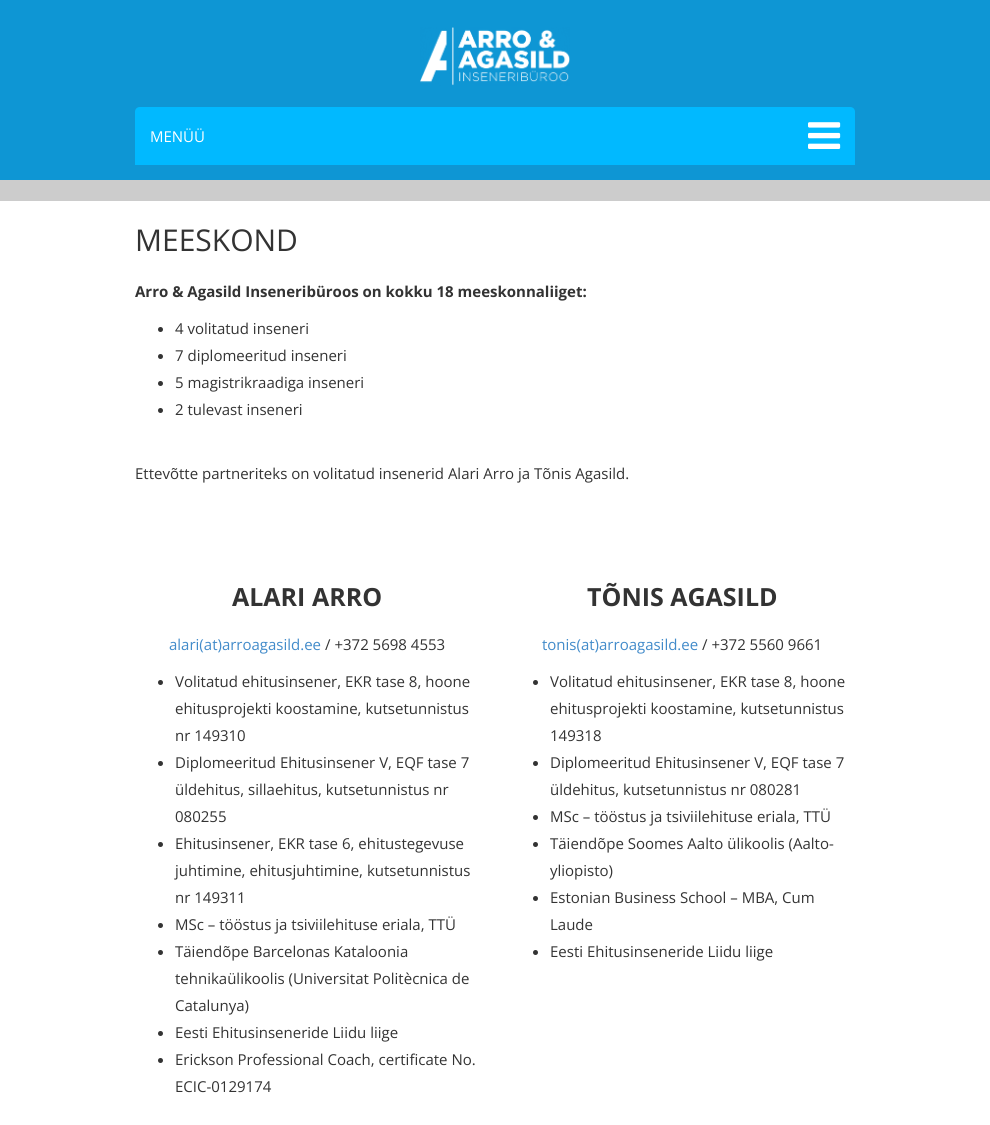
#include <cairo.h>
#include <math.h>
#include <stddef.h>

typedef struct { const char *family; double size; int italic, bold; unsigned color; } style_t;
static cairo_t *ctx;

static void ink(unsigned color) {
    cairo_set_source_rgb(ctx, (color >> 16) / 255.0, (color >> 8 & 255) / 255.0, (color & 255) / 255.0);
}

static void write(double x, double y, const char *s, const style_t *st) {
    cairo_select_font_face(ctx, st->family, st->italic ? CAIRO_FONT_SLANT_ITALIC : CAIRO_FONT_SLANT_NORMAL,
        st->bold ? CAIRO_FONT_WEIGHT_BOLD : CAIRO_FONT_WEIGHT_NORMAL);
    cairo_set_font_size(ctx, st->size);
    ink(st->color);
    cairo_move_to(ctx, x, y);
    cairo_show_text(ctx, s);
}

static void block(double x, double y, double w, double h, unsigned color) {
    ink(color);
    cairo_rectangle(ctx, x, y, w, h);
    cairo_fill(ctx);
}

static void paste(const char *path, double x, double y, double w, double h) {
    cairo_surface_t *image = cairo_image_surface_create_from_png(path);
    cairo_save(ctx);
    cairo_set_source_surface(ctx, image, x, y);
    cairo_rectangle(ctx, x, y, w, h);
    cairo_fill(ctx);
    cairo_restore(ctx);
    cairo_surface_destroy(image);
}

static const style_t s1 = {"Open Sans", 15, 0, 0, 0xffffff};
static const style_t s2 = {"Open Sans", 30, 0, 0, 0x333333};
static const style_t s3 = {"Open Sans", 15, 0, 1, 0x333333};
static const style_t s4 = {"Open Sans", 15, 0, 0, 0x333333};
static const style_t s5 = {"Open Sans", 25, 0, 1, 0x333333};
static const style_t s6 = {"Open Sans", 15, 0, 0, 0x428bca};

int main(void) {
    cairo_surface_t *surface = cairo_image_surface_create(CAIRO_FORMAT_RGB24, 990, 1125);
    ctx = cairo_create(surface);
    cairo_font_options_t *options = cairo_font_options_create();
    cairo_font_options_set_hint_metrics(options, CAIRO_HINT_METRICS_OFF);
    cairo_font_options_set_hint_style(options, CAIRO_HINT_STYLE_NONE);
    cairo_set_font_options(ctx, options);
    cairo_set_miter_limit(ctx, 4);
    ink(0xffffff);
    cairo_paint(ctx);
    block(0, 0, 990, 180, 0x0e96d4);
    paste("pic1.png", 420, 27, 150, 59);
    ink(0x01b9ff);
    cairo_new_path(ctx);
    cairo_move_to(ctx, 140, 107);
    cairo_line_to(ctx, 850, 107);
    cairo_curve_to(ctx, 853, 107, 855, 109, 855, 112);
    cairo_line_to(ctx, 855, 165);
    cairo_line_to(ctx, 135, 165);
    cairo_line_to(ctx, 135, 112);
    cairo_curve_to(ctx, 135, 109, 137, 107, 140, 107);
    cairo_close_path(ctx);
    cairo_fill(ctx);
    write(150, 142, "MENÜÜ", &s1);
    paste("pic2.png", 808, 122, 33, 27);
    block(0, 180, 990, 21, 0xcccccc);
    write(135, 251, "MEESKOND", &s2);
    write(135, 297, "Arro & Agasild Inseneribüroos on kokku 18 meeskonnaliiget:", &s3);
    cairo_new_path(ctx);
    cairo_arc(ctx, 160.5, 329.5, 2.5, 0, 2 * M_PI);
    cairo_fill(ctx);
    write(175, 334, "4 volitatud inseneri", &s4);
    cairo_new_path(ctx);
    cairo_arc(ctx, 160.5, 356.5, 2.5, 0, 2 * M_PI);
    cairo_fill(ctx);
    write(175, 361, "7 diplomeeritud inseneri", &s4);
    cairo_new_path(ctx);
    cairo_arc(ctx, 160.5, 383.5, 2.5, 0, 2 * M_PI);
    cairo_fill(ctx);
    write(175, 388, "5 magistrikraadiga inseneri", &s4);
    cairo_new_path(ctx);
    cairo_arc(ctx, 160.5, 410.5, 2.5, 0, 2 * M_PI);
    cairo_fill(ctx);
    write(175, 415, "2 tulevast inseneri", &s4);
    write(135, 479, "Ettevõtte partneriteks on volitatud insenerid Alari Arro ja Tõnis Agasild.", &s4);
    write(232, 606, "ALARI ARRO", &s5);
    write(169, 650, "alari(at)arroagasild.ee", &s6);
    write(325, 650, "/ +372 5698 4553", &s4);
    cairo_new_path(ctx);
    cairo_arc(ctx, 160.5, 682.5, 2.5, 0, 2 * M_PI);
    cairo_fill(ctx);
    write(175, 687, "Volitatud ehitusinsener, EKR tase 8, hoone", &s4);
    write(175, 714, "ehitusprojekti koostamine, kutsetunnistus", &s4);
    write(175, 741, "nr 149310", &s4);
    cairo_new_path(ctx);
    cairo_arc(ctx, 160.5, 763.5, 2.5, 0, 2 * M_PI);
    cairo_fill(ctx);
    write(175, 768, "Diplomeeritud Ehitusinsener V, EQF tase 7", &s4);
    write(175, 795, "üldehitus, sillaehitus, kutsetunnistus nr", &s4);
    write(175, 822, "080255", &s4);
    cairo_new_path(ctx);
    cairo_arc(ctx, 160.5, 844.5, 2.5, 0, 2 * M_PI);
    cairo_fill(ctx);
    write(175, 849, "Ehitusinsener, EKR tase 6, ehitustegevuse", &s4);
    write(175, 876, "juhtimine, ehitusjuhtimine, kutsetunnistus", &s4);
    write(175, 903, "nr 149311", &s4);
    cairo_new_path(ctx);
    cairo_arc(ctx, 160.5, 925.5, 2.5, 0, 2 * M_PI);
    cairo_fill(ctx);
    write(175, 930, "MSc – tööstus ja tsiviilehituse eriala, TTÜ", &s4);
    cairo_new_path(ctx);
    cairo_arc(ctx, 160.5, 952.5, 2.5, 0, 2 * M_PI);
    cairo_fill(ctx);
    write(175, 957, "Täiendõpe Barcelonas Kataloonia", &s4);
    write(175, 984, "tehnikaülikoolis (Universitat Politècnica de", &s4);
    write(175, 1011, "Catalunya)", &s4);
    cairo_new_path(ctx);
    cairo_arc(ctx, 160.5, 1033.5, 2.5, 0, 2 * M_PI);
    cairo_fill(ctx);
    write(175, 1038, "Eesti Ehitusinseneride Liidu liige", &s4);
    cairo_new_path(ctx);
    cairo_arc(ctx, 160.5, 1060.5, 2.5, 0, 2 * M_PI);
    cairo_fill(ctx);
    write(175, 1065, "Erickson Professional Coach, certificate No.", &s4);
    write(175, 1092, "ECIC-0129174", &s4);
    write(587, 606, "TÕNIS AGASILD", &s5);
    write(542, 650, "tonis(at)arroagasild.ee", &s6);
    write(702, 650, "/ +372 5560 9661", &s4);
    cairo_new_path(ctx);
    cairo_arc(ctx, 535.5, 682.5, 2.5, 0, 2 * M_PI);
    cairo_fill(ctx);
    write(550, 687, "Volitatud ehitusinsener, EKR tase 8, hoone", &s4);
    write(550, 714, "ehitusprojekti koostamine, kutsetunnistus", &s4);
    write(550, 741, "149318", &s4);
    cairo_new_path(ctx);
    cairo_arc(ctx, 535.5, 763.5, 2.5, 0, 2 * M_PI);
    cairo_fill(ctx);
    write(550, 768, "Diplomeeritud Ehitusinsener V, EQF tase 7", &s4);
    write(550, 795, "üldehitus, kutsetunnistus nr 080281", &s4);
    cairo_new_path(ctx);
    cairo_arc(ctx, 535.5, 817.5, 2.5, 0, 2 * M_PI);
    cairo_fill(ctx);
    write(550, 822, "MSc – tööstus ja tsiviilehituse eriala, TTÜ", &s4);
    cairo_new_path(ctx);
    cairo_arc(ctx, 535.5, 844.5, 2.5, 0, 2 * M_PI);
    cairo_fill(ctx);
    write(550, 849, "Täiendõpe Soomes Aalto ülikoolis (Aalto-", &s4);
    write(550, 876, "yliopisto)", &s4);
    cairo_new_path(ctx);
    cairo_arc(ctx, 535.5, 898.5, 2.5, 0, 2 * M_PI);
    cairo_fill(ctx);
    write(550, 903, "Estonian Business School – MBA, Cum", &s4);
    write(550, 930, "Laude", &s4);
    cairo_new_path(ctx);
    cairo_arc(ctx, 535.5, 952.5, 2.5, 0, 2 * M_PI);
    cairo_fill(ctx);
    write(550, 957, "Eesti Ehitusinseneride Liidu liige", &s4);
    cairo_surface_write_to_png(surface, "screenshot.png");
    cairo_font_options_destroy(options);
    cairo_destroy(ctx);
    cairo_surface_destroy(surface);
    return 0;
}
